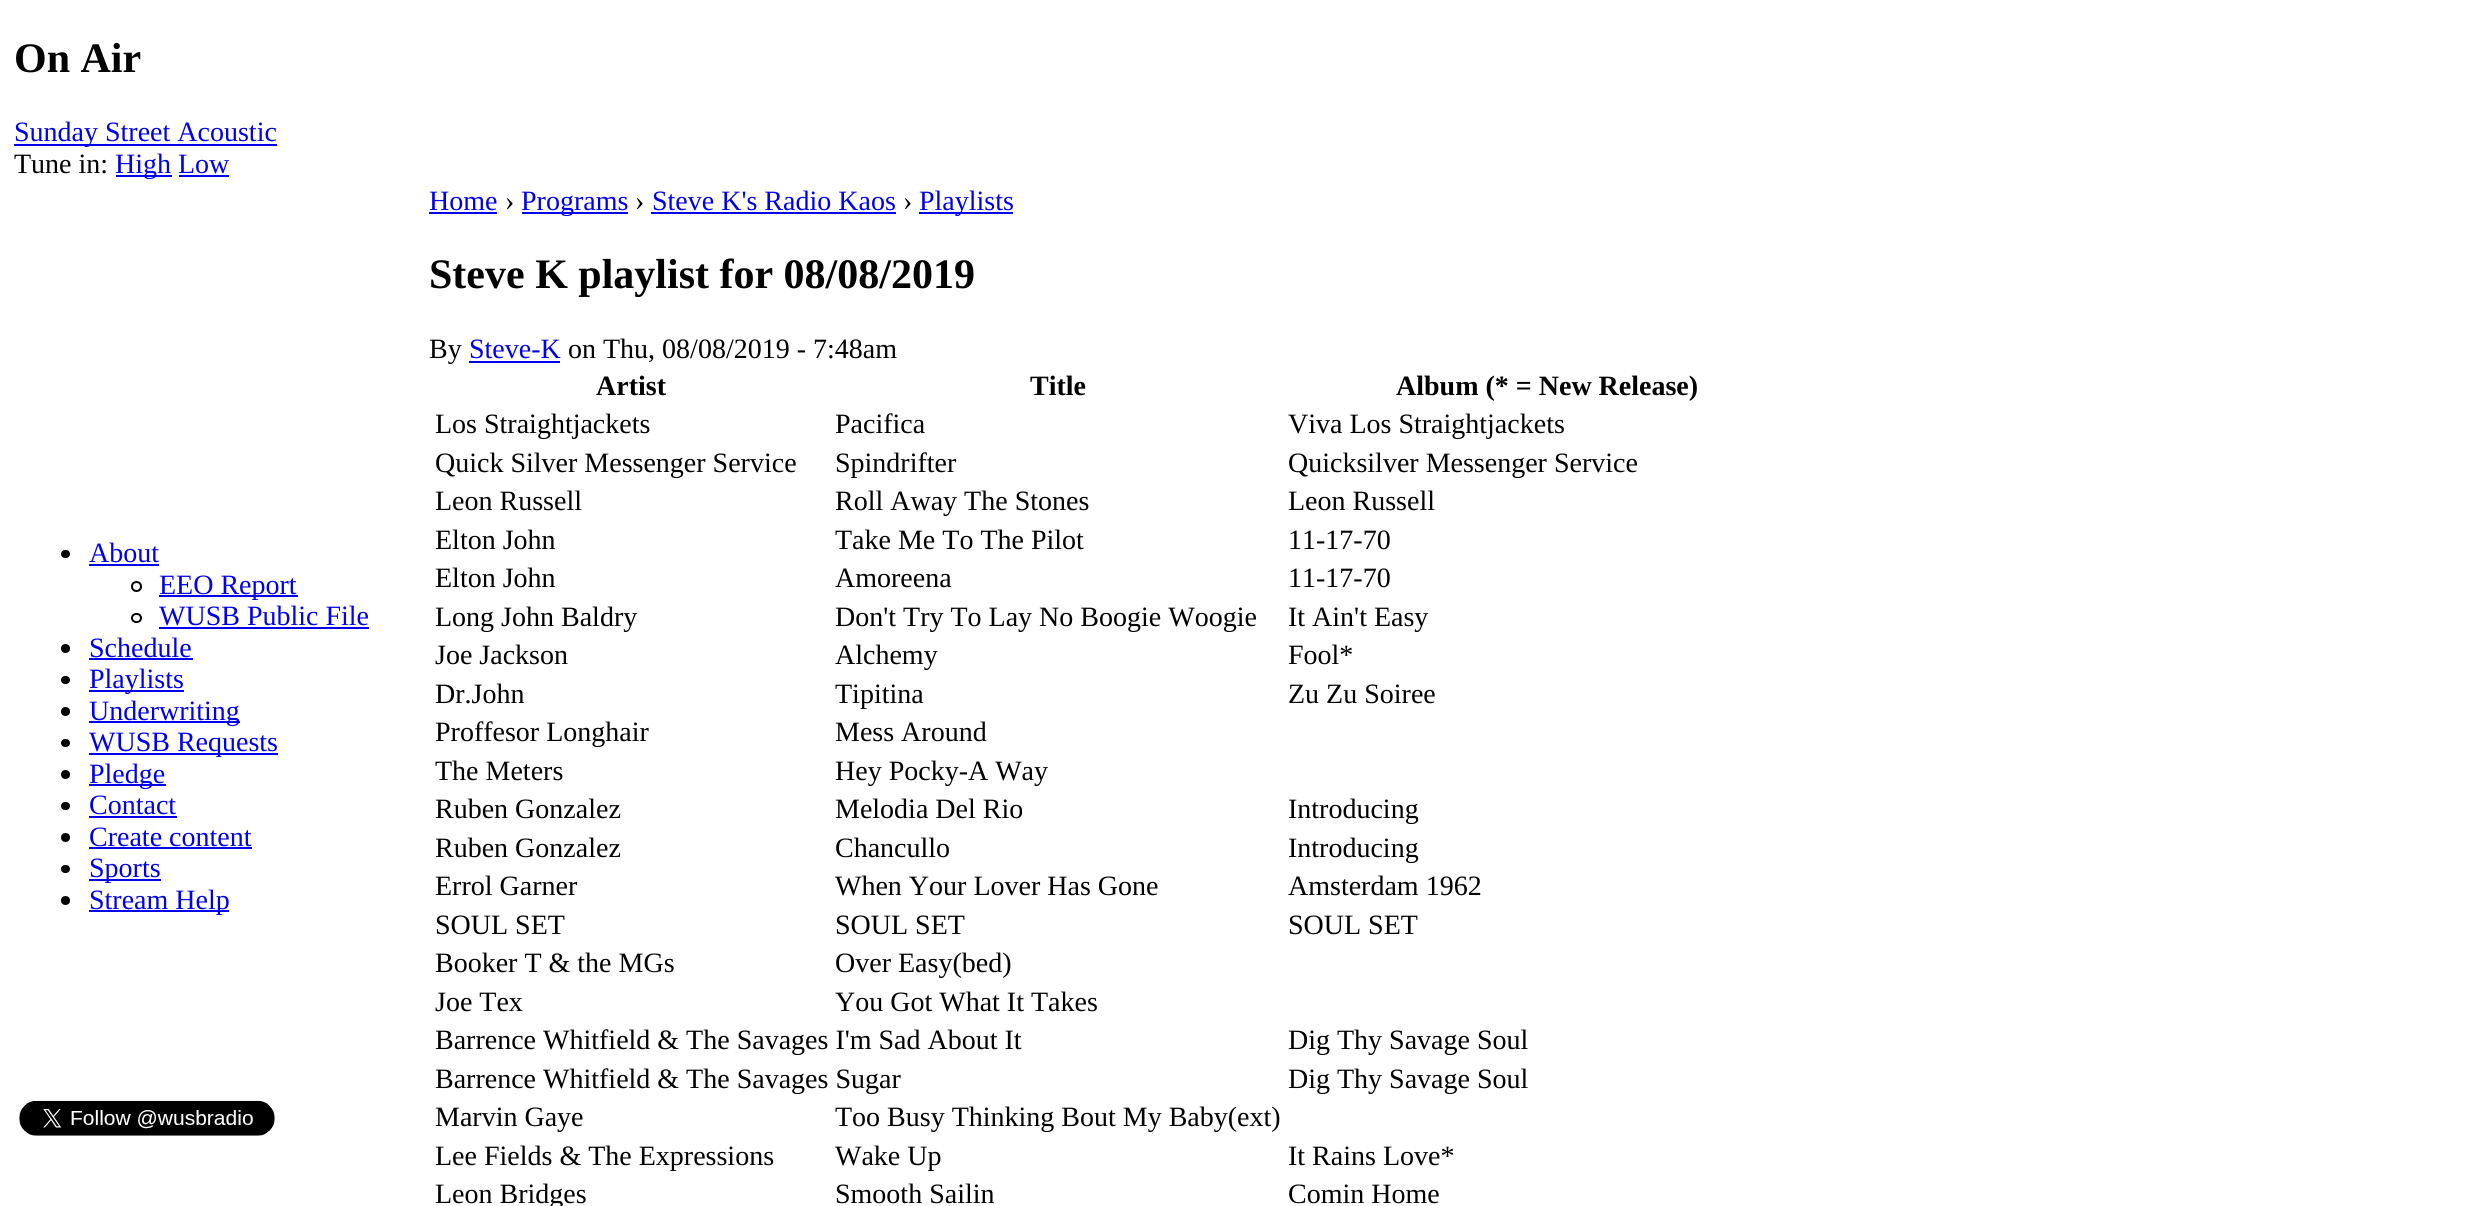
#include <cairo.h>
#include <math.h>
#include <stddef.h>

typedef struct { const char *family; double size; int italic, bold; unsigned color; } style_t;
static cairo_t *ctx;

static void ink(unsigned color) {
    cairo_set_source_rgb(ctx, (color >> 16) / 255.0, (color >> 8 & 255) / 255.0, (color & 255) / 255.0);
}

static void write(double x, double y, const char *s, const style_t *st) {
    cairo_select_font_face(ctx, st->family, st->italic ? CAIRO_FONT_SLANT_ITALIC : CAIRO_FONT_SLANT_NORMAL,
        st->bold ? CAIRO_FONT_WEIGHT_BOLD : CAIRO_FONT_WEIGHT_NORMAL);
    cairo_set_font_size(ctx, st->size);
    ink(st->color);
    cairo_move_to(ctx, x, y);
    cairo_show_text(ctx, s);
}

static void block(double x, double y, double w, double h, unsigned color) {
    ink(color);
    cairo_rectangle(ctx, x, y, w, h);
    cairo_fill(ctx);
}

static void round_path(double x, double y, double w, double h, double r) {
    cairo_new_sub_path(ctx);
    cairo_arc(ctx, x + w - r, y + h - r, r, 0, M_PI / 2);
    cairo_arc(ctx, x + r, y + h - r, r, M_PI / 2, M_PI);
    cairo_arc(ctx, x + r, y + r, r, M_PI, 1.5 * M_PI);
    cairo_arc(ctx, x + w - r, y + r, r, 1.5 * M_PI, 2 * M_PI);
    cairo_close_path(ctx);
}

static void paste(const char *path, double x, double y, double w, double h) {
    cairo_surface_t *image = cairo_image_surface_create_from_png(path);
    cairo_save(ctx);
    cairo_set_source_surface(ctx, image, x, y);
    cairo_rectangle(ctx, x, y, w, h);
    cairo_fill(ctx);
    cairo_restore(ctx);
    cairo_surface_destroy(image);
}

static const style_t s1 = {"Liberation Serif", 42, 0, 1, 0x000000};
static const style_t s2 = {"Liberation Serif", 28, 0, 0, 0x0000ee};
static const style_t s3 = {"Liberation Serif", 28, 0, 0, 0x000000};
static const style_t s4 = {"Liberation Serif", 28, 0, 1, 0x000000};

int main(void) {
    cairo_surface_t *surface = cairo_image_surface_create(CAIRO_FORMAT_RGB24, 2467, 1206);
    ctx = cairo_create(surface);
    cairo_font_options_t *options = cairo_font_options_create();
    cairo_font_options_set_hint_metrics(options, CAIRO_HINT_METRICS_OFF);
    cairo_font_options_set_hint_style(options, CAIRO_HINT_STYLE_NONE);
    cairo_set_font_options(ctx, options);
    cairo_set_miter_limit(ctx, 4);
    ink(0xffffff);
    cairo_paint(ctx);
    write(14, 72, "On Air", &s1);
    block(14, 144, 263, 2, 0x0000ee);
    write(14, 141, "Sunday Street Acoustic", &s2);
    write(14, 173, "Tune in:", &s3);
    block(116, 175, 56, 2, 0x0000ee);
    write(115, 173, "High Low", &s2);
    block(179, 175, 50, 2, 0x0000ee);
    ink(0x000000);
    round_path(61, 550, 9, 8, 4);
    cairo_fill(ctx);
    write(89, 562, "About", &s2);
    block(89, 564, 70, 2, 0x0000ee);
    cairo_new_path(ctx);
    cairo_arc(ctx, 136.5, 586.5, 4.5, 0, 2 * M_PI);
    ink(0x000000);
    cairo_stroke(ctx);
    block(159, 595, 139, 2, 0x0000ee);
    write(159, 594, "EEO Report", &s2);
    round_path(132, 614, 9, 8, 4);
    ink(0x000000);
    cairo_stroke(ctx);
    write(159, 625, "WUSB Public File", &s2);
    block(159, 627, 210, 2, 0x0000ee);
    ink(0x000000);
    cairo_new_path(ctx);
    cairo_arc(ctx, 65.5, 648.5, 4.5, 0, 2 * M_PI);
    cairo_fill(ctx);
    write(89, 657, "Schedule", &s2);
    block(89, 658, 104, 2, 0x0000ee);
    ink(0x000000);
    round_path(61, 676, 9, 8, 4);
    cairo_fill(ctx);
    block(89, 690, 95, 2, 0x0000ee);
    write(89, 688, "Playlists", &s2);
    ink(0x000000);
    cairo_new_path(ctx);
    cairo_arc(ctx, 65.5, 711.5, 4.5, 0, 2 * M_PI);
    cairo_fill(ctx);
    block(89, 721, 151, 2, 0x0000ee);
    write(89, 720, "Underwriting", &s2);
    ink(0x000000);
    round_path(61, 739, 9, 8, 4);
    cairo_fill(ctx);
    block(89, 753, 189, 2, 0x0000ee);
    write(89, 751, "WUSB Requests", &s2);
    ink(0x000000);
    cairo_new_path(ctx);
    cairo_arc(ctx, 65.5, 774.5, 4.5, 0, 2 * M_PI);
    cairo_fill(ctx);
    block(89, 784, 77, 2, 0x0000ee);
    write(89, 783, "Pledge", &s2);
    ink(0x000000);
    round_path(61, 802, 9, 8, 4);
    cairo_fill(ctx);
    write(89, 814, "Contact", &s2);
    block(89, 816, 88, 2, 0x0000ee);
    ink(0x000000);
    cairo_new_path(ctx);
    cairo_arc(ctx, 65.5, 837.5, 4.5, 0, 2 * M_PI);
    cairo_fill(ctx);
    write(89, 846, "Create content", &s2);
    block(89, 847, 163, 2, 0x0000ee);
    ink(0x000000);
    round_path(61, 865, 9, 8, 4);
    cairo_fill(ctx);
    block(89, 879, 72, 2, 0x0000ee);
    write(89, 877, "Sports", &s2);
    ink(0x000000);
    cairo_new_path(ctx);
    cairo_arc(ctx, 65.5, 900.5, 4.5, 0, 2 * M_PI);
    cairo_fill(ctx);
    block(89, 910, 140, 2, 0x0000ee);
    write(89, 909, "Stream Help", &s2);
    paste("pic1.png", 19, 1100, 256, 36);
    write(429, 210, "Home", &s2);
    block(429, 212, 68, 2, 0x0000ee);
    write(505, 210, "›", &s3);
    block(522, 212, 106, 2, 0x0000ee);
    write(521, 210, "Programs", &s2);
    write(635, 210, "›", &s3);
    write(652, 210, "Steve K's Radio Kaos", &s2);
    block(651, 212, 245, 2, 0x0000ee);
    write(903, 210, "›", &s3);
    block(919, 212, 94, 2, 0x0000ee);
    write(919, 210, "Playlists", &s2);
    write(429, 288, "Steve K playlist for 08/08/2019", &s1);
    write(429, 358, "By", &s3);
    write(469, 358, "Steve-K", &s2);
    block(469, 361, 91, 2, 0x0000ee);
    write(568, 358, "on Thu, 08/08/2019 - 7:48am", &s3);
    write(596, 395, "Artist", &s4);
    write(1030, 395, "Title", &s4);
    write(1396, 395, "Album (* = New Release)", &s4);
    write(435, 433, "Los Straightjackets", &s3);
    write(835, 433, "Pacifica", &s3);
    write(1288, 433, "Viva Los Straightjackets", &s3);
    write(435, 472, "Quick Silver Messenger Service", &s3);
    write(835, 472, "Spindrifter", &s3);
    write(1288, 472, "Quicksilver Messenger Service", &s3);
    write(435, 510, "Leon Russell", &s3);
    write(835, 510, "Roll Away The Stones", &s3);
    write(1288, 510, "Leon Russell", &s3);
    write(435, 549, "Elton John", &s3);
    write(835, 549, "Take Me To The Pilot", &s3);
    write(1288, 549, "11-17-70", &s3);
    write(435, 587, "Elton John", &s3);
    write(835, 587, "Amoreena", &s3);
    write(1288, 587, "11-17-70", &s3);
    write(435, 626, "Long John Baldry", &s3);
    write(835, 626, "Don't Try To Lay No Boogie Woogie", &s3);
    write(1288, 626, "It Ain't Easy", &s3);
    write(435, 664, "Joe Jackson", &s3);
    write(835, 664, "Alchemy", &s3);
    write(1288, 664, "Fool*", &s3);
    write(435, 703, "Dr.John", &s3);
    write(835, 703, "Tipitina", &s3);
    write(1288, 703, "Zu Zu Soiree", &s3);
    write(435, 741, "Proffesor Longhair", &s3);
    write(835, 741, "Mess Around", &s3);
    write(435, 780, "The Meters", &s3);
    write(835, 780, "Hey Pocky-A Way", &s3);
    write(435, 818, "Ruben Gonzalez", &s3);
    write(835, 818, "Melodia Del Rio", &s3);
    write(1288, 818, "Introducing", &s3);
    write(435, 857, "Ruben Gonzalez", &s3);
    write(835, 857, "Chancullo", &s3);
    write(1288, 857, "Introducing", &s3);
    write(435, 895, "Errol Garner", &s3);
    write(835, 895, "When Your Lover Has Gone", &s3);
    write(1288, 895, "Amsterdam 1962", &s3);
    write(435, 934, "SOUL SET", &s3);
    write(835, 934, "SOUL SET", &s3);
    write(1288, 934, "SOUL SET", &s3);
    write(435, 972, "Booker T & the MGs", &s3);
    write(835, 972, "Over Easy(bed)", &s3);
    write(435, 1011, "Joe Tex", &s3);
    write(835, 1011, "You Got What It Takes", &s3);
    write(435, 1049, "Barrence Whitfield & The Savages I'm Sad About It", &s3);
    write(1288, 1049, "Dig Thy Savage Soul", &s3);
    write(435, 1088, "Barrence Whitfield & The Savages Sugar", &s3);
    write(1288, 1088, "Dig Thy Savage Soul", &s3);
    write(435, 1126, "Marvin Gaye", &s3);
    write(835, 1126, "Too Busy Thinking Bout My Baby(ext)", &s3);
    write(435, 1165, "Lee Fields & The Expressions", &s3);
    write(835, 1165, "Wake Up", &s3);
    write(1288, 1165, "It Rains Love*", &s3);
    write(435, 1203, "Leon Bridges", &s3);
    write(835, 1203, "Smooth Sailin", &s3);
    write(1288, 1203, "Comin Home", &s3);
    cairo_surface_write_to_png(surface, "screenshot.png");
    cairo_font_options_destroy(options);
    cairo_destroy(ctx);
    cairo_surface_destroy(surface);
    return 0;
}
